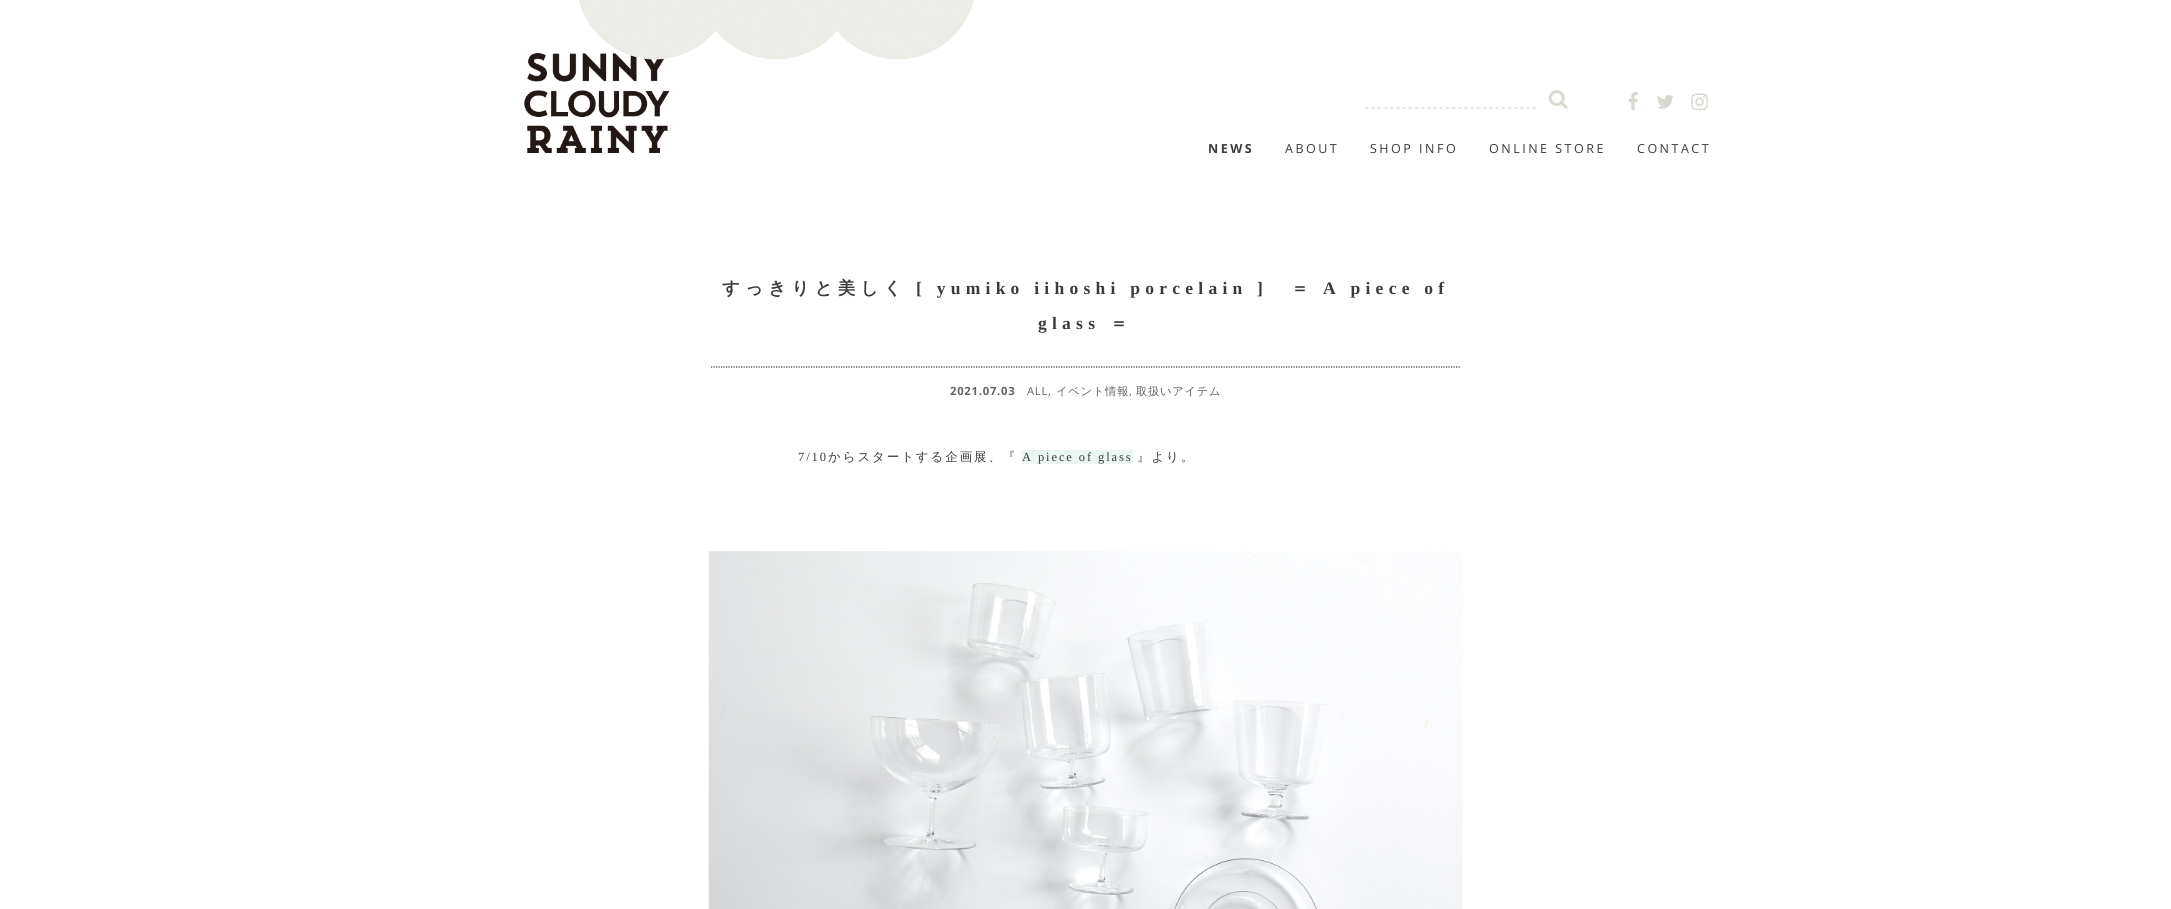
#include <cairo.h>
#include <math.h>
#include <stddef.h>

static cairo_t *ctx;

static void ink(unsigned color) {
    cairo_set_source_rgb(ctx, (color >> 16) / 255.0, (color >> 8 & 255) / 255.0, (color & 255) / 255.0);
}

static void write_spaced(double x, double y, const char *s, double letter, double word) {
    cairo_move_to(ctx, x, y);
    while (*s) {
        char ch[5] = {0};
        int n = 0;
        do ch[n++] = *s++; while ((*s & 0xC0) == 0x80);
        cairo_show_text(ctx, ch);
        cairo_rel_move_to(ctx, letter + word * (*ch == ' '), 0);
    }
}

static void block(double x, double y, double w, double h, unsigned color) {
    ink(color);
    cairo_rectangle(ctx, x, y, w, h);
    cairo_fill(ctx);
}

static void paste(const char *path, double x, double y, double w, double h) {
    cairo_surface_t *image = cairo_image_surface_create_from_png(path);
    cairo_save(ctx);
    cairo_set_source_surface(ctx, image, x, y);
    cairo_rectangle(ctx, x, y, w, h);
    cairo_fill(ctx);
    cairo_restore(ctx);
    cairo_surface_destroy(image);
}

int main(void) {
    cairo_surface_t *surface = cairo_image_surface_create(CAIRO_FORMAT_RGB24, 2171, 909);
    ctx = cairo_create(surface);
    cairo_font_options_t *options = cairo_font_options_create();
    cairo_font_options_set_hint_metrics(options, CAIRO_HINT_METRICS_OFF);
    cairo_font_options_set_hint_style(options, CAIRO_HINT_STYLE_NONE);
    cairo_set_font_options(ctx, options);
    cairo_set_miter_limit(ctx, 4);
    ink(0xffffff);
    cairo_paint(ctx);
    paste("pic1.png", 524, 0, 450, 153);
    cairo_new_path(ctx);
    cairo_move_to(ctx, 1365, 108);
    cairo_line_to(ctx, 1536, 108);
    ink(0xd6d9ce);
    cairo_set_line_width(ctx, 1.2);
    cairo_set_dash(ctx, (double[]){3.75, 2.45}, 2, 0);
    cairo_stroke(ctx);
    paste("pic2.png", 1548, 89, 20, 20);
    paste("pic3.png", 1628, 92, 10, 19);
    paste("pic4.png", 1657, 95, 17, 14);
    paste("pic5.png", 1691, 93, 17, 18);
    cairo_select_font_face(ctx, "Open Sans", CAIRO_FONT_SLANT_NORMAL, CAIRO_FONT_WEIGHT_BOLD);
    cairo_set_font_size(ctx, 12.5);
    ink(0x3e3a39);
    write_spaced(1208, 153, "NEWS", 2.5, 0);
    cairo_select_font_face(ctx, "Open Sans", CAIRO_FONT_SLANT_NORMAL, CAIRO_FONT_WEIGHT_NORMAL);
    write_spaced(1285, 153, "ABOUT", 2.5, 0);
    write_spaced(1370, 153, "SHOP INFO", 2.5, 0);
    write_spaced(1489, 153, "ONLINE STORE", 2.5, 0);
    write_spaced(1637, 153, "CONTACT", 2.5, 0);
    cairo_new_path(ctx);
    cairo_move_to(ctx, 711, 367);
    cairo_line_to(ctx, 1461, 367);
    cairo_set_dash(ctx, (double[]){1.25, 1.25}, 2, 0);
    cairo_stroke(ctx);
    cairo_select_font_face(ctx, "WenQuanYi Zen Hei", CAIRO_FONT_SLANT_NORMAL, CAIRO_FONT_WEIGHT_BOLD);
    cairo_set_font_size(ctx, 17.5);
    write_spaced(722, 294, "すっきりと美しく", 5.25, 0);
    cairo_select_font_face(ctx, "Liberation Serif", CAIRO_FONT_SLANT_NORMAL, CAIRO_FONT_WEIGHT_BOLD);
    write_spaced(916, 294, "[ yumiko iihoshi porcelain ]", 5.25, 0);
    cairo_select_font_face(ctx, "WenQuanYi Zen Hei", CAIRO_FONT_SLANT_NORMAL, CAIRO_FONT_WEIGHT_BOLD);
    write_spaced(1291, 294, "＝", 5.25, 0);
    cairo_select_font_face(ctx, "Liberation Serif", CAIRO_FONT_SLANT_NORMAL, CAIRO_FONT_WEIGHT_BOLD);
    write_spaced(1323, 294, "A piece of", 5.25, 0);
    write_spaced(1038, 329, "glass", 5.25, 0);
    cairo_select_font_face(ctx, "WenQuanYi Zen Hei", CAIRO_FONT_SLANT_NORMAL, CAIRO_FONT_WEIGHT_BOLD);
    write_spaced(1110, 329, "＝", 5.25, 0);
    cairo_select_font_face(ctx, "Open Sans", CAIRO_FONT_SLANT_NORMAL, CAIRO_FONT_WEIGHT_BOLD);
    cairo_set_font_size(ctx, 11.25);
    ink(0x656161);
    write_spaced(950, 395, "2021.07.03", 0.75, 0);
    cairo_select_font_face(ctx, "Open Sans", CAIRO_FONT_SLANT_NORMAL, CAIRO_FONT_WEIGHT_NORMAL);
    write_spaced(1027, 395, "ALL,", 0.75, 0);
    cairo_select_font_face(ctx, "WenQuanYi Zen Hei Medium", CAIRO_FONT_SLANT_NORMAL, CAIRO_FONT_WEIGHT_NORMAL);
    write_spaced(1056, 395, "イベント情報", 0.75, 0);
    cairo_select_font_face(ctx, "Open Sans", CAIRO_FONT_SLANT_NORMAL, CAIRO_FONT_WEIGHT_NORMAL);
    write_spaced(1129, 395, ",", 0.75, 0);
    cairo_select_font_face(ctx, "WenQuanYi Zen Hei Medium", CAIRO_FONT_SLANT_NORMAL, CAIRO_FONT_WEIGHT_NORMAL);
    write_spaced(1136, 395, "取扱いアイテム", 0.75, 0);
    cairo_select_font_face(ctx, "Liberation Serif", CAIRO_FONT_SLANT_NORMAL, CAIRO_FONT_WEIGHT_NORMAL);
    cairo_set_font_size(ctx, 12.5);
    ink(0x3e3a39);
    write_spaced(798, 461, "7/10", 1.9, 0);
    cairo_select_font_face(ctx, "WenQuanYi Zen Hei Medium", CAIRO_FONT_SLANT_NORMAL, CAIRO_FONT_WEIGHT_NORMAL);
    write_spaced(828, 461, "からスタートする企画展、『", 1.9, 0);
    block(1021, 450, 112, 14, 0xebf5f2);
    cairo_select_font_face(ctx, "Liberation Serif", CAIRO_FONT_SLANT_NORMAL, CAIRO_FONT_WEIGHT_NORMAL);
    ink(0x3e3a39);
    write_spaced(1022, 461, "A piece of glass", 1.9, 0);
    cairo_select_font_face(ctx, "WenQuanYi Zen Hei Medium", CAIRO_FONT_SLANT_NORMAL, CAIRO_FONT_WEIGHT_NORMAL);
    write_spaced(1137, 461, "』より。", 1.9, 0);
    paste("pic6.png", 708, 551, 755, 358);
    cairo_surface_write_to_png(surface, "screenshot.png");
    cairo_font_options_destroy(options);
    cairo_destroy(ctx);
    cairo_surface_destroy(surface);
    return 0;
}
